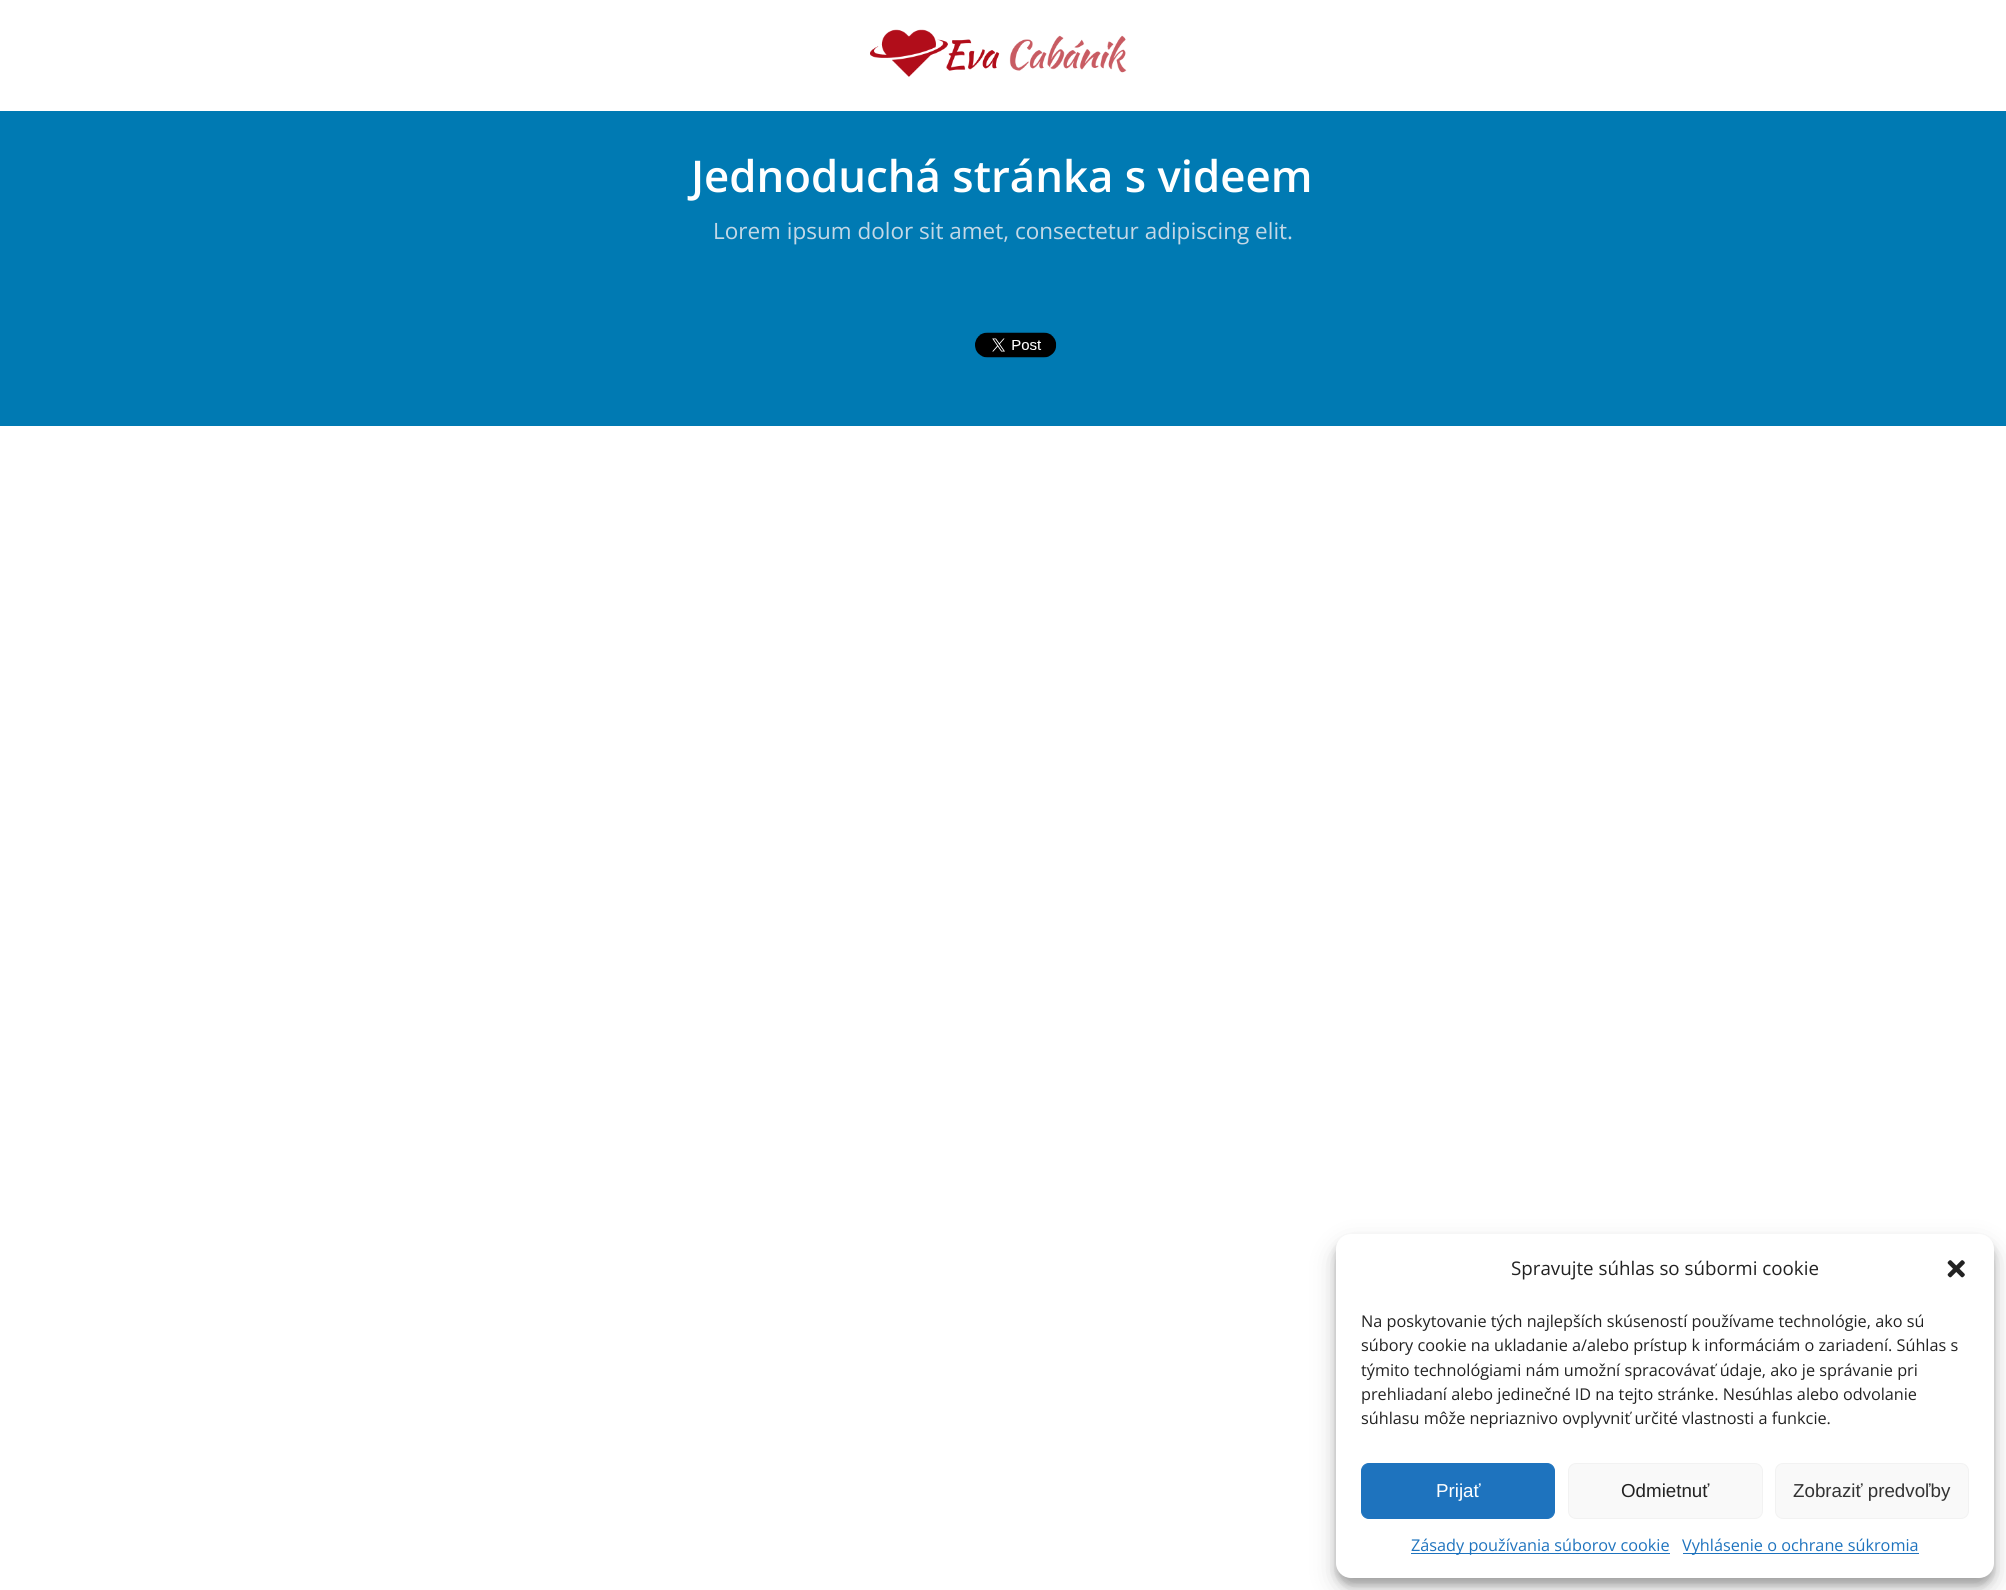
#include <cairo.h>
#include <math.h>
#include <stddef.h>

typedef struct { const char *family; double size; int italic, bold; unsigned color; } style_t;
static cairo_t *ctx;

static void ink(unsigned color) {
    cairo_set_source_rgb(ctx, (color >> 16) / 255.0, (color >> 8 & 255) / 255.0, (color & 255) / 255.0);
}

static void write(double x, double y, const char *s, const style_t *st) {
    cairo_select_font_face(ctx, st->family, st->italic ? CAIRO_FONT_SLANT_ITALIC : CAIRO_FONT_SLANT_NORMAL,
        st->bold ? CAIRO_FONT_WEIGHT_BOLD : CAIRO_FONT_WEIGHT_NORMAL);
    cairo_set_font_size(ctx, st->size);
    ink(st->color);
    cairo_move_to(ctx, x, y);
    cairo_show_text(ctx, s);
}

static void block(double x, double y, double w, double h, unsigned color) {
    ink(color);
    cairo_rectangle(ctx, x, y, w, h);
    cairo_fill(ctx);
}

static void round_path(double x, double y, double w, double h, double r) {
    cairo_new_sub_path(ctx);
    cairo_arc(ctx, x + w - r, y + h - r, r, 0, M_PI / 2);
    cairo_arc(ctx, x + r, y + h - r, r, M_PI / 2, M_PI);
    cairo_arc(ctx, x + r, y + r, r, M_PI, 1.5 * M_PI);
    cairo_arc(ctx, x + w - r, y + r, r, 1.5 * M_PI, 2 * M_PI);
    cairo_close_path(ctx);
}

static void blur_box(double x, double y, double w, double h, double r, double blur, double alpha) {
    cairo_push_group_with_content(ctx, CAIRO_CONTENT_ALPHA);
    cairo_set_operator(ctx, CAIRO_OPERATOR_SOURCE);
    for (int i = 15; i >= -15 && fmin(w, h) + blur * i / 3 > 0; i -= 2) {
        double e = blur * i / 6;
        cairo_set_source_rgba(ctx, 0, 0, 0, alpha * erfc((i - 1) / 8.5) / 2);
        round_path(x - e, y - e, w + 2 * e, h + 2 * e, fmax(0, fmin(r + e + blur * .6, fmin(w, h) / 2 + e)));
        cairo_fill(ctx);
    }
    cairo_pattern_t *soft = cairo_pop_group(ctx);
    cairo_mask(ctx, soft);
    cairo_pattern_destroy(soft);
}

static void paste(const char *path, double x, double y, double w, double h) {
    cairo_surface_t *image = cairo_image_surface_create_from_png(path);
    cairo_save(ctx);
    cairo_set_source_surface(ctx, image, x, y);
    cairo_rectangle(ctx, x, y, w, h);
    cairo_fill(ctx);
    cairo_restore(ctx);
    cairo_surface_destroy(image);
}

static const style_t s1 = {"Open Sans SemiBold", 43.75, 0, 0, 0xffffff};
static const style_t s2 = {"Open Sans", 22.5, 0, 0, 0xc4d8e6};
static const style_t s3 = {"Open Sans", 18.75, 0, 0, 0x222222};
static const style_t s4 = {"Open Sans", 16.25, 0, 0, 0x222222};
static const style_t s5 = {"Liberation Sans", 18.75, 0, 0, 0xffffff};
static const style_t s6 = {"Liberation Sans", 18.75, 0, 0, 0x222222};
static const style_t s7 = {"Liberation Sans", 18.75, 0, 0, 0x333333};
static const style_t s8 = {"Open Sans", 16.25, 0, 0, 0x1e73be};

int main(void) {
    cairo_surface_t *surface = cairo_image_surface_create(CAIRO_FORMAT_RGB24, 2006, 1590);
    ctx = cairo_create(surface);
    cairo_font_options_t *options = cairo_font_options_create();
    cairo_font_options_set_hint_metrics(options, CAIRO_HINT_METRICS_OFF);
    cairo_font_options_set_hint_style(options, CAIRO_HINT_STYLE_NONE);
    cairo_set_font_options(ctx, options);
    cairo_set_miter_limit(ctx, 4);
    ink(0xffffff);
    cairo_paint(ctx);
    paste("pic1.png", 870, 29, 257, 48);
    block(0, 111, 2006, 315, 0x007ab3);
    write(691, 192, "Jednoduchá stránka s videem", &s1);
    write(713, 239, "Lorem ipsum dolor sit amet, consectetur adipiscing elit.", &s2);
    paste("pic2.png", 975, 332, 82, 26);
    ink(0x000000);
    blur_box(1336, 1241, 658, 344, 15, 4, 0.23);
    blur_box(1336, 1246, 658, 344, 15, 12.5, 0.19);
    ink(0xffffff);
    round_path(1336, 1234, 658, 344, 15);
    cairo_fill(ctx);
    write(1511, 1275, "Spravujte súhlas so súbormi cookie", &s3);
    paste("pic3.png", 1947, 1260, 18, 18);
    write(1361, 1327, "Na poskytovanie tých najlepších skúseností používame technológie, ako sú", &s4);
    write(1361, 1351, "súbory cookie na ukladanie a/alebo prístup k informáciám o zariadení. Súhlas s", &s4);
    write(1361, 1376, "týmito technológiami nám umožní spracovávať údaje, ako je správanie pri", &s4);
    write(1361, 1400, "prehliadaní alebo jedinečné ID na tejto stránke. Nesúhlas alebo odvolanie", &s4);
    write(1361, 1424, "súhlasu môže nepriaznivo ovplyvniť určité vlastnosti a funkcie.", &s4);
    ink(0x1e73be);
    round_path(1361.5, 1463.5, 193, 55, 7.5);
    cairo_fill_preserve(ctx);
    cairo_set_line_width(ctx, 1);
    cairo_stroke(ctx);
    write(1436, 1497, "Prijať", &s5);
    ink(0xf9f9f9);
    round_path(1568.5, 1463.5, 194, 55, 7.5);
    cairo_fill_preserve(ctx);
    ink(0xf2f2f2);
    cairo_stroke(ctx);
    write(1621, 1497, "Odmietnuť", &s6);
    ink(0xf9f9f9);
    round_path(1775.5, 1463.5, 193, 55, 7.5);
    cairo_fill_preserve(ctx);
    ink(0xf2f2f2);
    cairo_stroke(ctx);
    write(1793, 1497, "Zobraziť predvoľby", &s7);
    block(1411, 1553, 259, 1, 0x1e73be);
    write(1411, 1551, "Zásady používania súborov cookie", &s8);
    block(1683, 1553, 236, 1, 0x1e73be);
    write(1682, 1551, "Vyhlásenie o ochrane súkromia", &s8);
    cairo_surface_write_to_png(surface, "screenshot.png");
    cairo_font_options_destroy(options);
    cairo_destroy(ctx);
    cairo_surface_destroy(surface);
    return 0;
}
